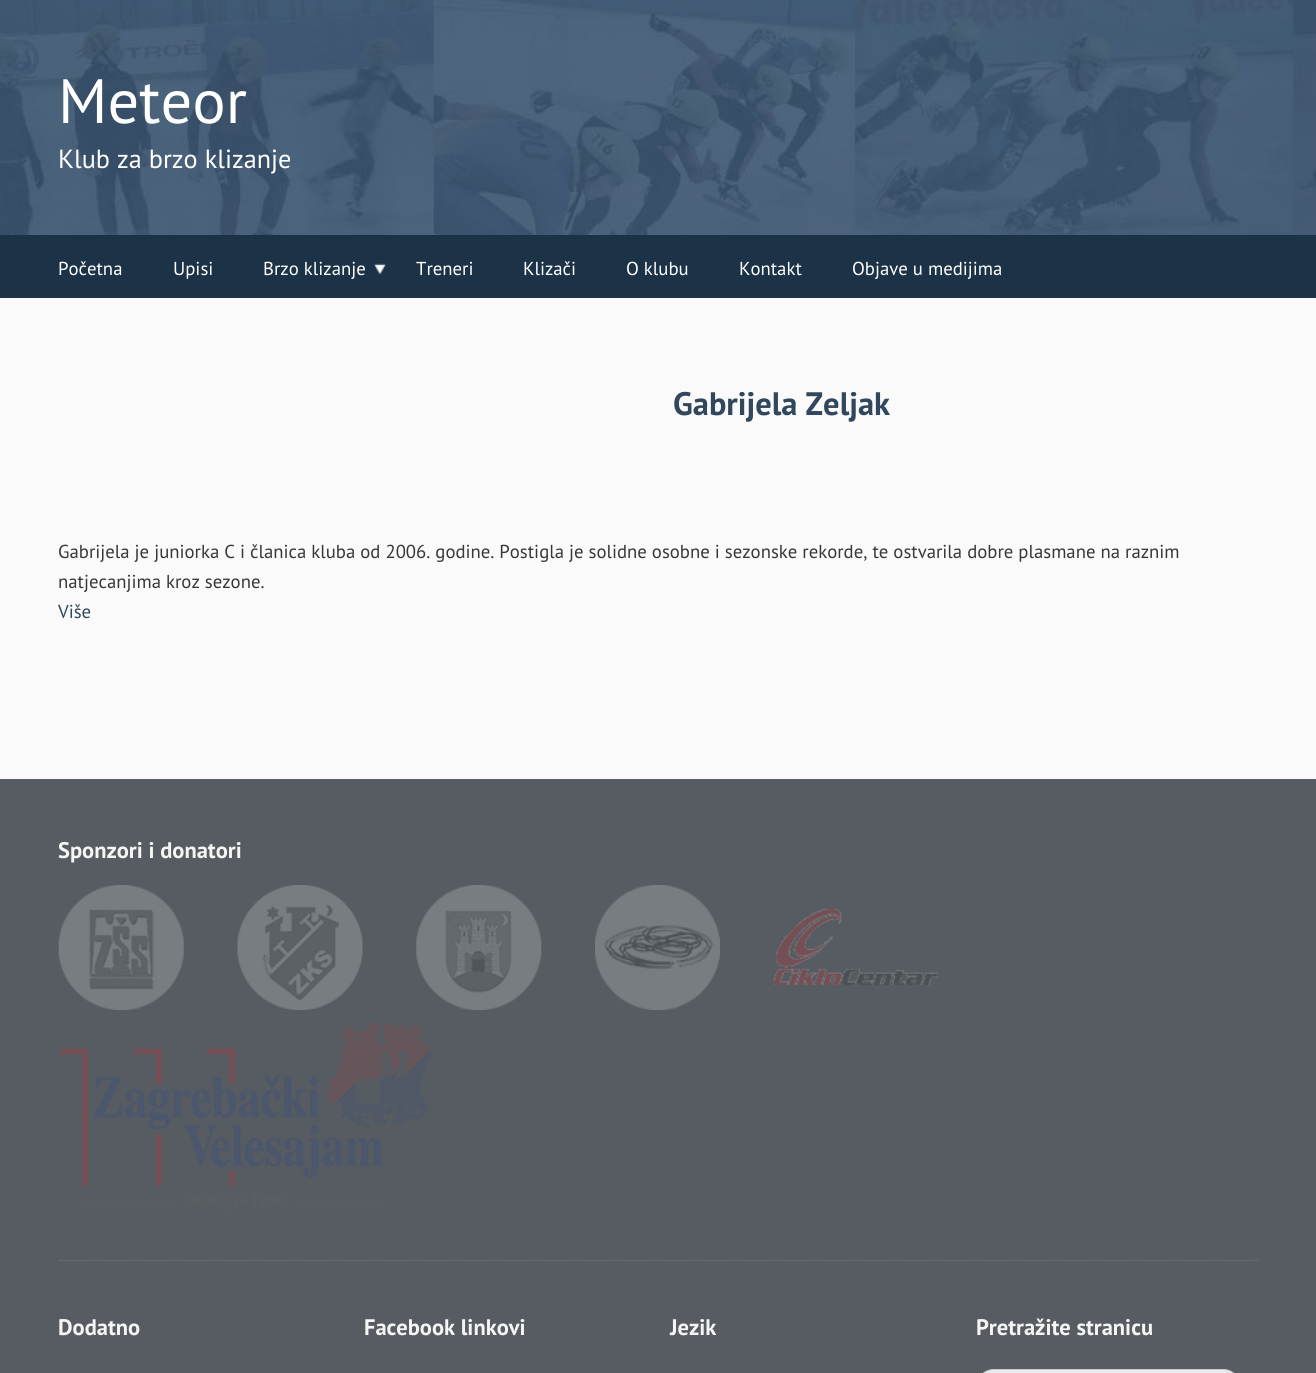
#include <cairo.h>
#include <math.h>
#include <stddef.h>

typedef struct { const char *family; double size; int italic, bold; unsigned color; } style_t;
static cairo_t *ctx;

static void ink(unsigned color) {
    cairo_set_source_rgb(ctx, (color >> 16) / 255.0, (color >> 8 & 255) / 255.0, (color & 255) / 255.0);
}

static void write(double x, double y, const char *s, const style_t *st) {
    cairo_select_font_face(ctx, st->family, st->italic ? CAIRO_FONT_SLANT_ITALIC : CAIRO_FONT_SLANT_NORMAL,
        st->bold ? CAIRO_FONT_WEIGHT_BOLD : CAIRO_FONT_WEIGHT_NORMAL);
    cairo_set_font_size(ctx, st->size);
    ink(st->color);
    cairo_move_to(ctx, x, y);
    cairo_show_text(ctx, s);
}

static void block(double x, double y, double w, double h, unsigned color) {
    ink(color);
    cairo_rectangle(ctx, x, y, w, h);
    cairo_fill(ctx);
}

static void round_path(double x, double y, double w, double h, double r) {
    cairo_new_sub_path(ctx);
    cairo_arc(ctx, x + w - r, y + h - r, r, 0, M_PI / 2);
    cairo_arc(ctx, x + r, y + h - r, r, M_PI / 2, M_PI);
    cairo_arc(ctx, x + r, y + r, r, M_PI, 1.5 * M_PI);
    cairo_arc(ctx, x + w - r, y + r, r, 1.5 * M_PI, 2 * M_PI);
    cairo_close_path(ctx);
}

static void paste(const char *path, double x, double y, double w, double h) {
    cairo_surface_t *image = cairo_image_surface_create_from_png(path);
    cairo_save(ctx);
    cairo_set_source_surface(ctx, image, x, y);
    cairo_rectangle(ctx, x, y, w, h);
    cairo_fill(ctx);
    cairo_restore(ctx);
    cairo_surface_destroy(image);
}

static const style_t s1 = {"PT Sans", 62.5, 0, 0, 0xffffff};
static const style_t s2 = {"PT Sans", 26.25, 0, 0, 0xffffff};
static const style_t s3 = {"PT Sans", 18.75, 0, 0, 0xffffff};
static const style_t s4 = {"PT Sans", 32.5, 0, 1, 0x31475d};
static const style_t s5 = {"PT Sans", 18.75, 0, 0, 0x373737};
static const style_t s6 = {"PT Sans", 18.75, 0, 0, 0x31475d};
static const style_t s7 = {"PT Sans", 22.5, 0, 1, 0xf5f5f5};

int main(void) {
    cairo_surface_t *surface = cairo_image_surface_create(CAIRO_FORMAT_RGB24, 1316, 1373);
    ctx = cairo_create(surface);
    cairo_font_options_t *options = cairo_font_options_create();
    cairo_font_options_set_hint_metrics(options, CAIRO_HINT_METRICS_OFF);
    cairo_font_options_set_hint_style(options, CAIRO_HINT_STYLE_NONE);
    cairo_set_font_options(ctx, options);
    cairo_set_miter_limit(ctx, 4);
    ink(0xfafafa);
    cairo_paint(ctx);
    paste("pic1.png", 0, 0, 1316, 235);
    write(58, 123, "Meteor", &s1);
    write(58, 168, "Klub za brzo klizanje", &s2);
    block(0, 235, 1316, 63, 0x1c3247);
    write(58, 275, "Početna", &s3);
    write(173, 275, "Upisi", &s3);
    write(263, 275, "Brzo klizanje", &s3);
    paste("pic2.png", 374, 263, 12, 11);
    write(416, 275, "Treneri", &s3);
    write(523, 275, "Klizači", &s3);
    write(626, 275, "O klubu", &s3);
    write(739, 275, "Kontakt", &s3);
    write(852, 275, "Objave u medijima", &s3);
    write(673, 415, "Gabrijela Zeljak", &s4);
    write(58, 558, "Gabrijela je juniorka C i članica kluba od 2006. godine. Postigla je solidne osobne i sezonske rekorde, te ostvarila dobre plasmane na raznim", &s5);
    write(58, 588, "natjecanjima kroz sezone.", &s5);
    write(58, 618, "Više", &s6);
    block(0, 779, 1316, 594, 0x565c61);
    cairo_new_path(ctx);
    cairo_move_to(ctx, 59, 1260.5);
    cairo_line_to(ctx, 1259, 1260.5);
    ink(0x717475);
    cairo_set_line_width(ctx, 1.2);
    cairo_set_dash(ctx, (double[]){1.25, 1.25}, 2, 0);
    cairo_stroke(ctx);
    write(58, 858, "Sponzori i donatori", &s7);
    paste("pic3.png", 58, 885, 126, 125);
    paste("pic4.png", 237, 885, 126, 125);
    paste("pic5.png", 416, 885, 126, 125);
    paste("pic6.png", 595, 885, 125, 125);
    paste("pic7.png", 773, 908, 165, 77);
    paste("pic8.png", 59, 1022, 372, 188);
    write(58, 1335, "Dodatno", &s7);
    write(364, 1335, "Facebook linkovi", &s7);
    write(670, 1335, "Jezik", &s7);
    write(976, 1335, "Pretražite stranicu", &s7);
    ink(0xe8eaf0);
    round_path(976.5, 1369.5, 264, 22, 17.5);
    cairo_fill_preserve(ctx);
    ink(0xcccccc);
    cairo_set_line_width(ctx, 1);
    cairo_set_dash(ctx, NULL, 0, 0);
    cairo_stroke(ctx);
    cairo_surface_write_to_png(surface, "screenshot.png");
    cairo_font_options_destroy(options);
    cairo_destroy(ctx);
    cairo_surface_destroy(surface);
    return 0;
}
